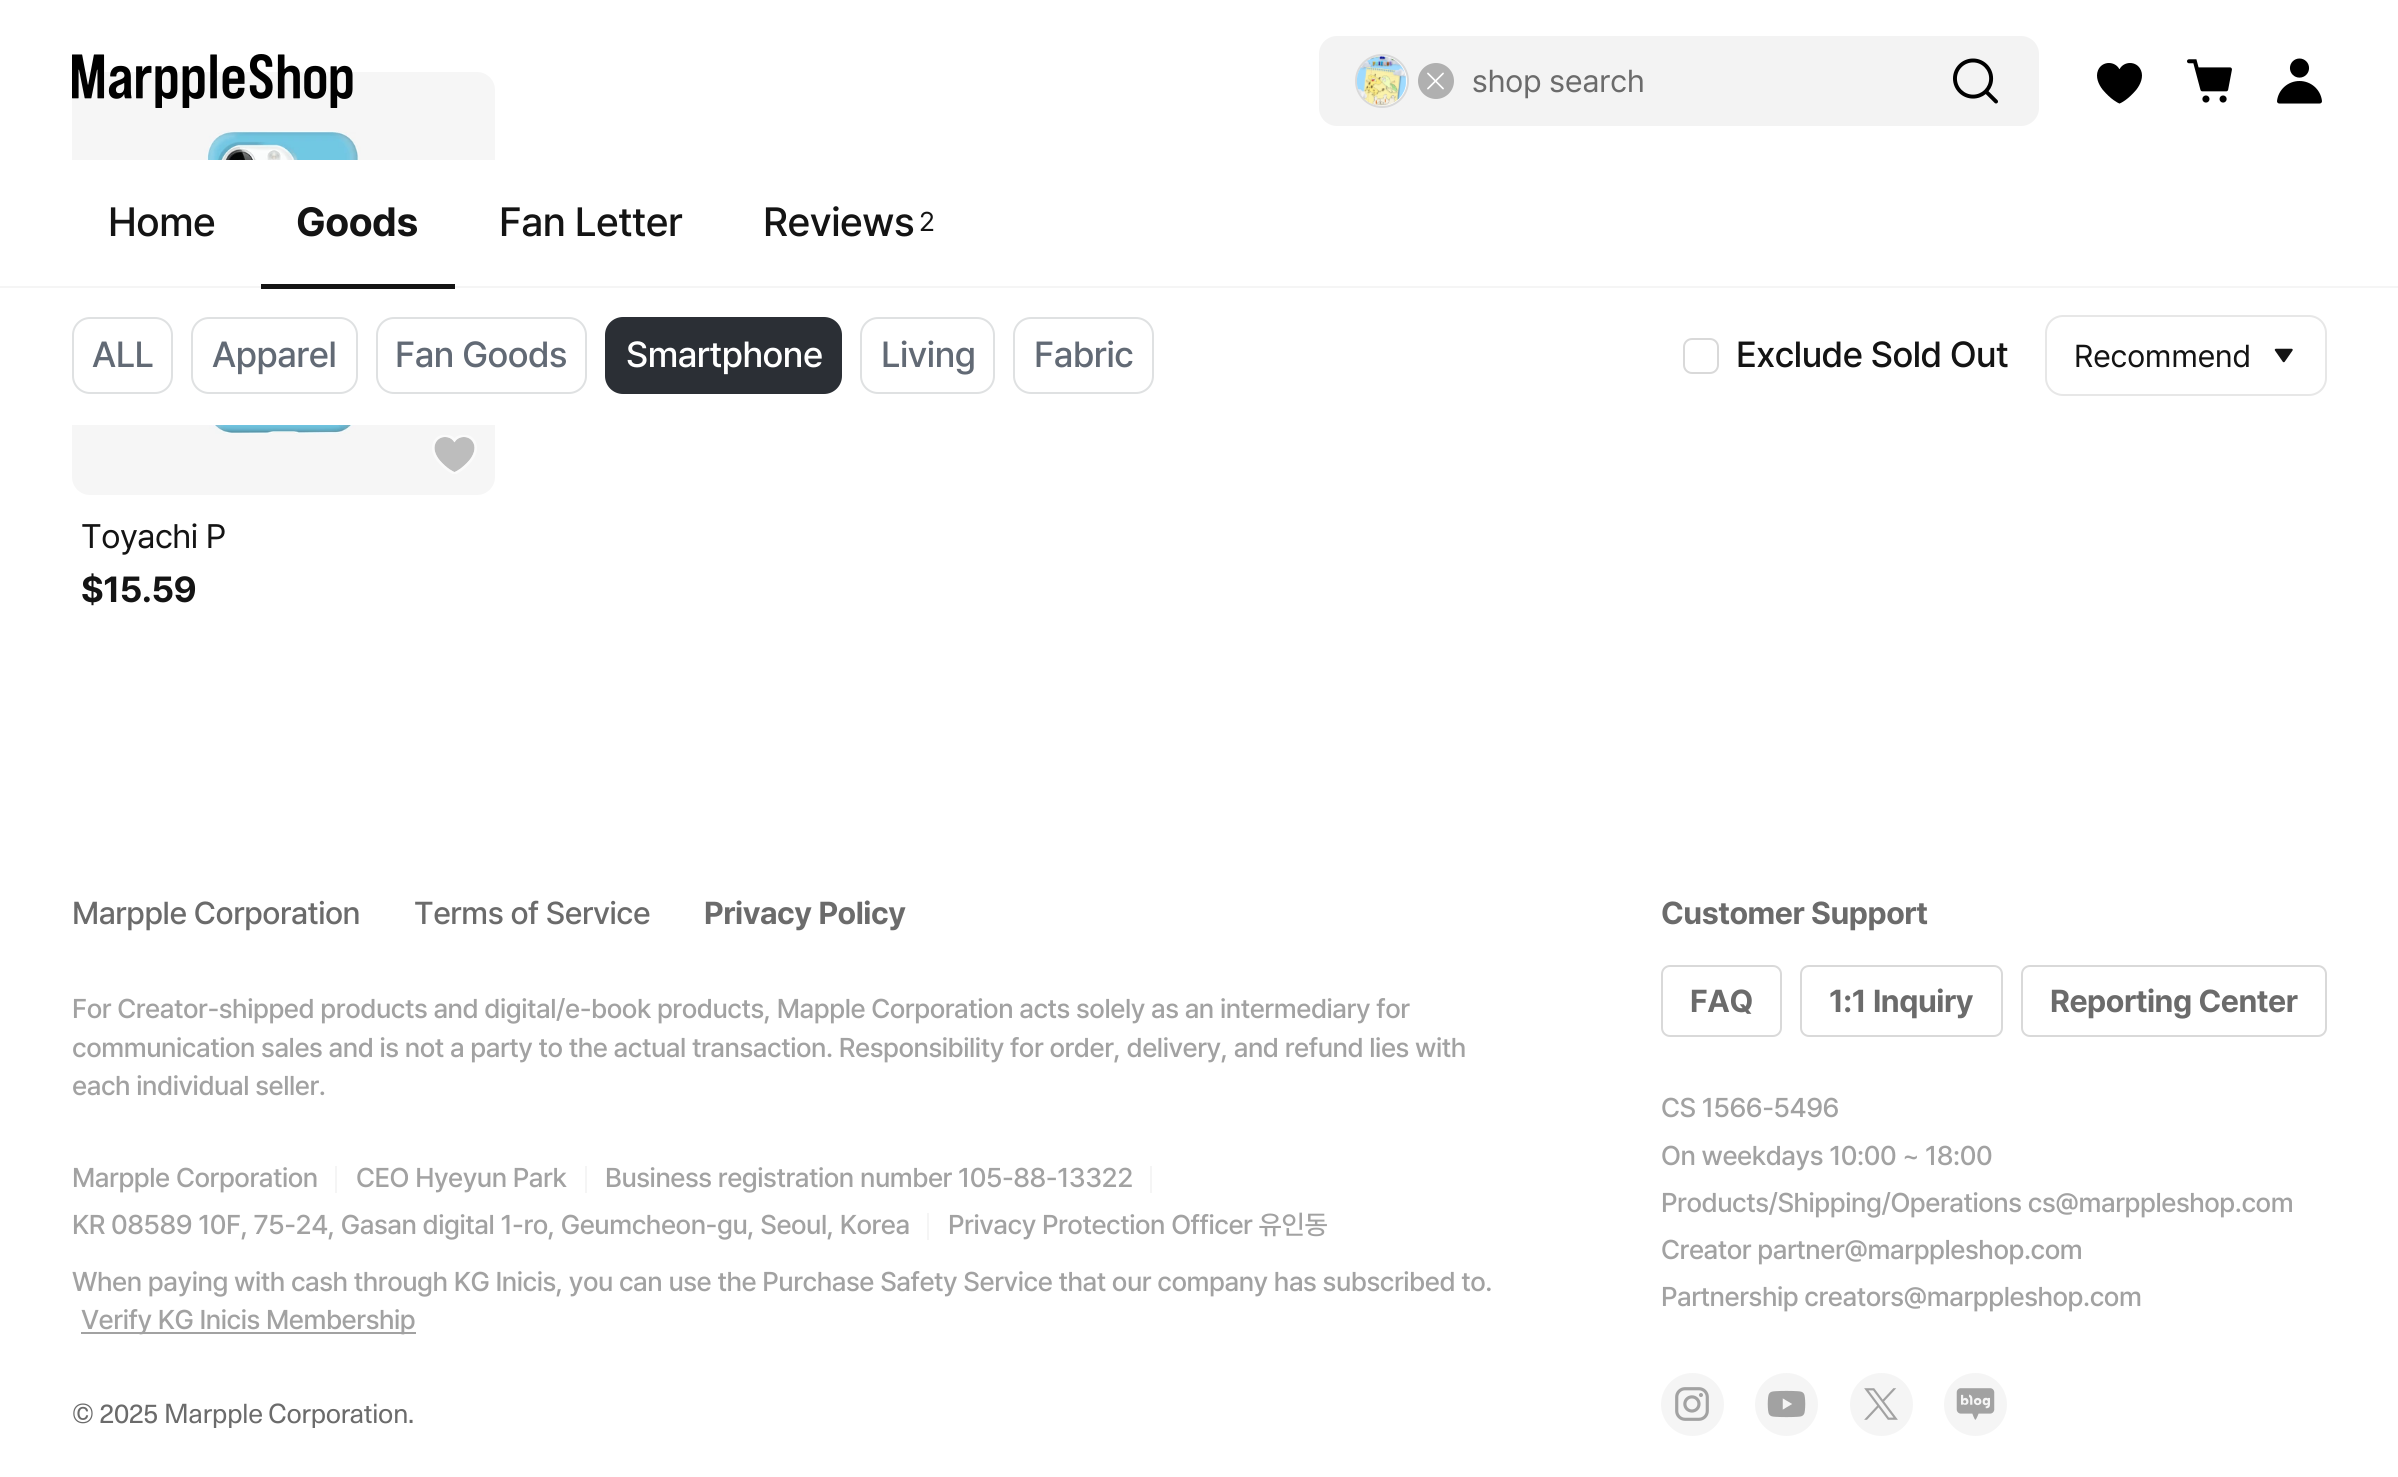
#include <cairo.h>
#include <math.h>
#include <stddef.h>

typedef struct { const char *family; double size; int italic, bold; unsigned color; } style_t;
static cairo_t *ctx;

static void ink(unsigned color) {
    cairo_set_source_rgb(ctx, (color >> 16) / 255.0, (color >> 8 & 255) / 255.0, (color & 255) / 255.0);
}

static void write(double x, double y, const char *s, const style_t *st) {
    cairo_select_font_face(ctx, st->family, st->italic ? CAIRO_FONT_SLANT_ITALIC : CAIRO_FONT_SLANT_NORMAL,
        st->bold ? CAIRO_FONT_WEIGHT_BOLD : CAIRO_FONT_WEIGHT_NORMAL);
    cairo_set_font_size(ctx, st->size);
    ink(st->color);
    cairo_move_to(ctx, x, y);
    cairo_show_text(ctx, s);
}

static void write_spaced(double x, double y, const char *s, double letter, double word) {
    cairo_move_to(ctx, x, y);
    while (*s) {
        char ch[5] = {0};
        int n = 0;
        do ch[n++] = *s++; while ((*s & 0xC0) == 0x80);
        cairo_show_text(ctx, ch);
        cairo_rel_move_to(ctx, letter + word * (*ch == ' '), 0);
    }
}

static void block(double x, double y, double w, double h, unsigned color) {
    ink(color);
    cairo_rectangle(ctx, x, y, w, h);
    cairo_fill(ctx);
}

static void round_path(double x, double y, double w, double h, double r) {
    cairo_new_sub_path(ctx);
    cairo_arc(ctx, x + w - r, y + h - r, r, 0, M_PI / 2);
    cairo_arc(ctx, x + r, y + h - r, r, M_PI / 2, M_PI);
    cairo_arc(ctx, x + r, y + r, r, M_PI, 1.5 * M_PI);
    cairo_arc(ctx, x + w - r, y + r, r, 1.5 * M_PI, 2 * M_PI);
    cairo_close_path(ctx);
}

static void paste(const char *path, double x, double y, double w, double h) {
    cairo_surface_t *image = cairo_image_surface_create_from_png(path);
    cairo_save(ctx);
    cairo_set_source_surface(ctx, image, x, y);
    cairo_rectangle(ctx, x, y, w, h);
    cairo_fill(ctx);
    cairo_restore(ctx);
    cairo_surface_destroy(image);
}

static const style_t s1 = {"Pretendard", 31.5, 0, 0, 0x6b6b6b};
static const style_t s2 = {"Pretendard", 31.5, 0, 0, 0x141414};

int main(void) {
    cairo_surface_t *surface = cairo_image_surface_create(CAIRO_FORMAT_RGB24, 2398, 1477);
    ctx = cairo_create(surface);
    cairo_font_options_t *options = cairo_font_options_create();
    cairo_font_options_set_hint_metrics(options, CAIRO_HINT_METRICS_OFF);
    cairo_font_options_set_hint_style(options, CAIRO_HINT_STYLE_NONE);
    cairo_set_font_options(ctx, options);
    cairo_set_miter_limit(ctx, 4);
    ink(0xffffff);
    cairo_paint(ctx);
    ink(0xf6f6f6);
    round_path(72, 72, 423, 423, 18);
    cairo_fill(ctx);
    paste("pic1.png", 72, 54, 281, 54);
    ink(0xf3f3f3);
    round_path(1319, 36, 720, 90, 18);
    cairo_fill(ctx);
    ink(0xffffff);
    cairo_arc(ctx, 1382, 81, 26, 0, 2 * M_PI);
    cairo_fill_preserve(ctx);
    ink(0xd9d9d9);
    cairo_stroke(ctx);
    paste("pic2.png", 1357, 56, 50, 50);
    ink(0xb0b0b0);
    cairo_arc(ctx, 1436, 81, 18, 0, 2 * M_PI);
    cairo_fill(ctx);
    paste("pic3.png", 1427, 72, 17, 18);
    write(1472, 92, "shop search", &s1);
    paste("pic4.png", 1953, 58, 45, 46);
    paste("pic5.png", 2097, 63, 45, 41);
    paste("pic6.png", 2187, 59, 45, 44);
    paste("pic7.png", 2277, 58, 45, 46);
    paste("pic9.png", 204, 131, 157, 303);
    block(72, 160, 423, 126, 0xffffff);
    block(0, 286, 2398, 2, 0xf5f5f5);
    cairo_select_font_face(ctx, "Pretendard Medium", CAIRO_FONT_SLANT_NORMAL, CAIRO_FONT_WEIGHT_NORMAL);
    cairo_set_font_size(ctx, 40.5);
    ink(0x141414);
    write_spaced(108, 236, "Home", -0.45, 0);
    cairo_select_font_face(ctx, "Pretendard", CAIRO_FONT_SLANT_NORMAL, CAIRO_FONT_WEIGHT_BOLD);
    write_spaced(296, 236, "Goods", -0.45, 0);
    block(72, 288, 423, 137, 0xffffff);
    block(261, 284, 194, 5, 0x141414);
    cairo_select_font_face(ctx, "Pretendard Medium", CAIRO_FONT_SLANT_NORMAL, CAIRO_FONT_WEIGHT_NORMAL);
    write_spaced(499, 236, "Fan Letter", -0.45, 0);
    write_spaced(763, 236, "Reviews", -0.45, 0);
    cairo_select_font_face(ctx, "Pretendard", CAIRO_FONT_SLANT_NORMAL, CAIRO_FONT_WEIGHT_NORMAL);
    cairo_set_font_size(ctx, 27);
    write_spaced(919, 231, "2", -0.45, 0);
    round_path(73, 318, 99, 75, 17);
    ink(0xdfe1e2);
    cairo_stroke(ctx);
    cairo_select_font_face(ctx, "Pretendard Medium", CAIRO_FONT_SLANT_NORMAL, CAIRO_FONT_WEIGHT_NORMAL);
    cairo_set_font_size(ctx, 36);
    ink(0x626a75);
    write_spaced(92, 367, "ALL", -0.45, 0);
    round_path(192, 318, 165, 75, 17);
    ink(0xdfe1e2);
    cairo_stroke(ctx);
    ink(0x626a75);
    write_spaced(212, 367, "Apparel", -0.45, 0);
    round_path(377, 318, 209, 75, 17);
    ink(0xdfe1e2);
    cairo_stroke(ctx);
    ink(0x626a75);
    write_spaced(395, 367, "Fan Goods", -0.45, 0);
    ink(0x2b2f35);
    round_path(605, 317, 237, 77, 18);
    cairo_fill(ctx);
    ink(0xffffff);
    write_spaced(626, 367, "Smartphone", -0.45, 0);
    round_path(861, 318, 133, 75, 17);
    ink(0xdfe1e2);
    cairo_stroke(ctx);
    ink(0x626a75);
    write_spaced(881, 367, "Living", -0.45, 0);
    round_path(1014, 318, 139, 75, 17);
    ink(0xdfe1e2);
    cairo_stroke(ctx);
    ink(0x626a75);
    write_spaced(1034, 367, "Fabric", -0.45, 0);
    round_path(1684, 339, 34, 34, 8);
    ink(0xd9d9d9);
    cairo_stroke(ctx);
    ink(0x141414);
    write_spaced(1736, 367, "Exclude Sold Out", -0.45, 0);
    round_path(2046, 316, 280, 79, 17);
    ink(0xe7e7e7);
    cairo_stroke(ctx);
    write(2074, 367, "Recommend", &s2);
    paste("pic8.png", 2274, 348, 19, 15);
    paste("pic10.png", 432, 435, 45, 39);
    cairo_set_font_size(ctx, 33.75);
    write_spaced(81, 548, "Toyachi P", -0.45, 0);
    cairo_select_font_face(ctx, "Pretendard", CAIRO_FONT_SLANT_NORMAL, CAIRO_FONT_WEIGHT_BOLD);
    cairo_set_font_size(ctx, 36);
    write_spaced(81, 602, "$15.59", -0.45, 0);
    cairo_select_font_face(ctx, "Pretendard Medium", CAIRO_FONT_SLANT_NORMAL, CAIRO_FONT_WEIGHT_NORMAL);
    cairo_set_font_size(ctx, 31.5);
    ink(0x6b6b6b);
    write_spaced(72, 924, "Marpple Corporation", -0.45, 0);
    write_spaced(414, 924, "Terms of Service", -0.45, 0);
    cairo_select_font_face(ctx, "Pretendard", CAIRO_FONT_SLANT_NORMAL, CAIRO_FONT_WEIGHT_BOLD);
    write_spaced(704, 924, "Privacy Policy", -0.45, 0);
    cairo_select_font_face(ctx, "Pretendard Medium", CAIRO_FONT_SLANT_NORMAL, CAIRO_FONT_WEIGHT_NORMAL);
    cairo_set_font_size(ctx, 27);
    ink(0xa2a2a2);
    write_spaced(72, 1018, "For Creator-shipped products and digital/e-book products, Mapple Corporation acts solely as an intermediary for", -0.45, 0);
    write_spaced(72, 1057, "communication sales and is not a party to the actual transaction. Responsibility for order, delivery, and refund lies with", -0.45, 0);
    write_spaced(72, 1095, "each individual seller.", -0.45, 0);
    write_spaced(72, 1187, "Marpple Corporation", -0.45, 0);
    block(335, 1166, 2, 27, 0xf5f5f5);
    ink(0xa2a2a2);
    write_spaced(356, 1187, "CEO Hyeyun Park", -0.45, 0);
    block(585, 1166, 2, 27, 0xf5f5f5);
    ink(0xa2a2a2);
    write_spaced(605, 1187, "Business registration number 105-88-13322", -0.45, 0);
    block(1150, 1166, 2, 27, 0xf5f5f5);
    ink(0xa2a2a2);
    write_spaced(72, 1234, "KR 08589 10F, 75-24, Gasan digital 1-ro, Geumcheon-gu, Seoul, Korea", -0.45, 0);
    block(927, 1213, 2, 27, 0xf5f5f5);
    ink(0xa2a2a2);
    write_spaced(948, 1234, "Privacy Protection Officer 유인동", -0.45, 0);
    write_spaced(72, 1291, "When paying with cash through KG Inicis, you can use the Purchase Safety Service that our company has subscribed to.", -0.45, 0);
    block(81, 1332, 335, 2, 0xa2a2a2);
    write_spaced(81, 1329, "Verify KG Inicis Membership", -0.45, 0);
    cairo_select_font_face(ctx, "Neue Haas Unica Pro", CAIRO_FONT_SLANT_NORMAL, CAIRO_FONT_WEIGHT_NORMAL);
    ink(0x6b6b6b);
    write_spaced(72, 1423, "© 2025 Marpple Corporation.", -0.45, 0);
    cairo_select_font_face(ctx, "Pretendard", CAIRO_FONT_SLANT_NORMAL, CAIRO_FONT_WEIGHT_BOLD);
    cairo_set_font_size(ctx, 31.5);
    write_spaced(1661, 924, "Customer Support", -0.45, 0);
    round_path(1662, 966, 119, 70, 8);
    ink(0xd9d9d9);
    cairo_stroke(ctx);
    ink(0x6b6b6b);
    write_spaced(1690, 1012, "FAQ", -0.45, 0);
    round_path(1801, 966, 201, 70, 8);
    ink(0xd9d9d9);
    cairo_stroke(ctx);
    ink(0x6b6b6b);
    write_spaced(1829, 1012, "1:1 Inquiry", -0.45, 0);
    round_path(2022, 966, 304, 70, 8);
    ink(0xd9d9d9);
    cairo_stroke(ctx);
    ink(0x6b6b6b);
    write_spaced(2050, 1012, "Reporting Center", -0.45, 0);
    cairo_select_font_face(ctx, "Pretendard Medium", CAIRO_FONT_SLANT_NORMAL, CAIRO_FONT_WEIGHT_NORMAL);
    cairo_set_font_size(ctx, 27);
    ink(0xa2a2a2);
    write_spaced(1661, 1117, "CS 1566-5496", -0.45, 0);
    write_spaced(1661, 1165, "On weekdays 10:00 ~ 18:00", -0.45, 0);
    write_spaced(1661, 1212, "Products/Shipping/Operations cs@marppleshop.com", -0.45, 0);
    write_spaced(1661, 1259, "Creator partner@marppleshop.com", -0.45, 0);
    write_spaced(1661, 1306, "Partnership creators@marppleshop.com", -0.45, 0);
    ink(0xf5f5f5);
    cairo_new_path(ctx);
    cairo_arc(ctx, 1692.5, 1404.5, 31.5, 0, 2 * M_PI);
    cairo_fill(ctx);
    paste("pic11.png", 1675, 1387, 34, 34);
    cairo_arc(ctx, 1786.5, 1404.5, 31.5, 0, 2 * M_PI);
    cairo_fill(ctx);
    paste("pic12.png", 1767, 1390, 39, 28);
    cairo_arc(ctx, 1881.5, 1404.5, 31.5, 0, 2 * M_PI);
    cairo_fill(ctx);
    paste("pic13.png", 1864, 1388, 34, 32);
    cairo_arc(ctx, 1975.5, 1404.5, 31.5, 0, 2 * M_PI);
    cairo_fill(ctx);
    paste("pic14.png", 1956, 1388, 39, 32);
    cairo_surface_write_to_png(surface, "screenshot.png");
    cairo_font_options_destroy(options);
    cairo_destroy(ctx);
    cairo_surface_destroy(surface);
    return 0;
}
